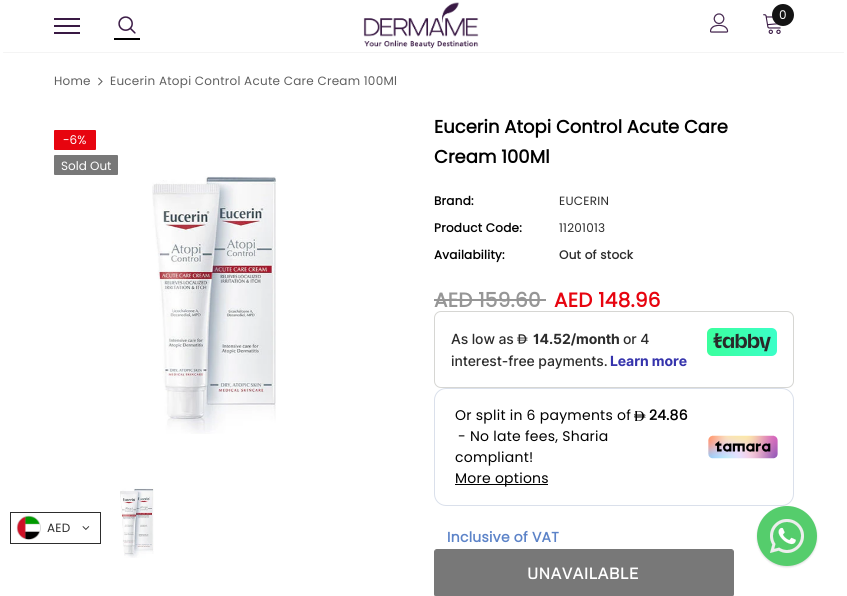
#include <cairo.h>
#include <math.h>
#include <stddef.h>

typedef struct { const char *family; double size; int italic, bold; unsigned color; } style_t;
static cairo_t *ctx;

static void ink(unsigned color) {
    cairo_set_source_rgb(ctx, (color >> 16) / 255.0, (color >> 8 & 255) / 255.0, (color & 255) / 255.0);
}

static void write(double x, double y, const char *s, const style_t *st) {
    cairo_select_font_face(ctx, st->family, st->italic ? CAIRO_FONT_SLANT_ITALIC : CAIRO_FONT_SLANT_NORMAL,
        st->bold ? CAIRO_FONT_WEIGHT_BOLD : CAIRO_FONT_WEIGHT_NORMAL);
    cairo_set_font_size(ctx, st->size);
    ink(st->color);
    cairo_move_to(ctx, x, y);
    cairo_show_text(ctx, s);
}

static void write_spaced(double x, double y, const char *s, double letter, double word) {
    cairo_move_to(ctx, x, y);
    while (*s) {
        char ch[5] = {0};
        int n = 0;
        do ch[n++] = *s++; while ((*s & 0xC0) == 0x80);
        cairo_show_text(ctx, ch);
        cairo_rel_move_to(ctx, letter + word * (*ch == ' '), 0);
    }
}

static void block(double x, double y, double w, double h, unsigned color) {
    ink(color);
    cairo_rectangle(ctx, x, y, w, h);
    cairo_fill(ctx);
}

static void round_path(double x, double y, double w, double h, double r) {
    cairo_new_sub_path(ctx);
    cairo_arc(ctx, x + w - r, y + h - r, r, 0, M_PI / 2);
    cairo_arc(ctx, x + r, y + h - r, r, M_PI / 2, M_PI);
    cairo_arc(ctx, x + r, y + r, r, M_PI, 1.5 * M_PI);
    cairo_arc(ctx, x + w - r, y + r, r, 1.5 * M_PI, 2 * M_PI);
    cairo_close_path(ctx);
}

static void blur_box(double x, double y, double w, double h, double r, double blur, double alpha) {
    cairo_push_group_with_content(ctx, CAIRO_CONTENT_ALPHA);
    cairo_set_operator(ctx, CAIRO_OPERATOR_SOURCE);
    for (int i = 15; i >= -15 && fmin(w, h) + blur * i / 3 > 0; i -= 2) {
        double e = blur * i / 6;
        cairo_set_source_rgba(ctx, 0, 0, 0, alpha * erfc((i - 1) / 8.5) / 2);
        round_path(x - e, y - e, w + 2 * e, h + 2 * e, fmax(0, fmin(r + e + blur * .6, fmin(w, h) / 2 + e)));
        cairo_fill(ctx);
    }
    cairo_pattern_t *soft = cairo_pop_group(ctx);
    cairo_mask(ctx, soft);
    cairo_pattern_destroy(soft);
}

static void paste(const char *path, double x, double y, double w, double h) {
    cairo_surface_t *image = cairo_image_surface_create_from_png(path);
    cairo_save(ctx);
    cairo_set_source_surface(ctx, image, x, y);
    cairo_rectangle(ctx, x, y, w, h);
    cairo_fill(ctx);
    cairo_restore(ctx);
    cairo_surface_destroy(image);
}

static const style_t s1 = {"Poppins", 12, 0, 0, 0xffffff};
static const style_t s2 = {"Poppins", 18, 0, 1, 0x000000};

int main(void) {
    cairo_surface_t *surface = cairo_image_surface_create(CAIRO_FORMAT_RGB24, 847, 596);
    ctx = cairo_create(surface);
    cairo_font_options_t *options = cairo_font_options_create();
    cairo_font_options_set_hint_metrics(options, CAIRO_HINT_METRICS_OFF);
    cairo_font_options_set_hint_style(options, CAIRO_HINT_STYLE_NONE);
    cairo_set_font_options(ctx, options);
    cairo_set_miter_limit(ctx, 4);
    ink(0xffffff);
    cairo_paint(ctx);
    cairo_save(ctx);
    cairo_rectangle(ctx, 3, 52, 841, 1);
    cairo_clip(ctx);
    ink(0x000000);
    blur_box(3, 6, 841, 46, 0, 1.5, 0.12);
    cairo_restore(ctx);
    paste("pic1.png", 363, 2, 116, 47);
    paste("pic2.png", 710, 13, 19, 20);
    paste("pic3.png", 763, 14, 18, 20);
    ink(0x141414);
    cairo_arc(ctx, 783, 15, 11, 0, 2 * M_PI);
    cairo_fill(ctx);
    cairo_select_font_face(ctx, "Poppins", CAIRO_FONT_SLANT_NORMAL, CAIRO_FONT_WEIGHT_NORMAL);
    cairo_set_font_size(ctx, 12);
    ink(0xffffff);
    write_spaced(779, 19, "0", 0.25, 0);
    block(54, 25, 26, 2, 0x391944);
    block(54, 18, 26, 2, 0x391944);
    block(54, 32, 26, 2, 0x391944);
    block(114, 38, 26, 2, 0x000000);
    paste("pic4.png", 118, 16, 18, 18);
    ink(0x5f5f5f);
    write_spaced(54, 85, "Home", 0.25, 0);
    paste("pic5.png", 98, 77, 5, 9);
    write_spaced(110, 85, "Eucerin Atopi Control Acute Care Cream 100Ml", 0.25, 0);
    ink(0xe7040f);
    round_path(54, 130, 42, 20, 1);
    cairo_fill(ctx);
    write(63, 144, "-6%", &s1);
    ink(0x787878);
    round_path(54, 155, 64, 20, 1);
    cairo_fill(ctx);
    write(61, 170, "Sold Out", &s1);
    paste("pic6.png", 152, 176, 124, 258);
    paste("pic7.png", 120, 487, 34, 71);
    write(434, 133, "Eucerin Atopi Control Acute Care", &s2);
    write(434, 163, "Cream 100Ml", &s2);
    cairo_set_font_size(ctx, 12);
    write_spaced(434, 205, "Brand:", 0.25, 0);
    cairo_select_font_face(ctx, "Poppins", CAIRO_FONT_SLANT_NORMAL, CAIRO_FONT_WEIGHT_NORMAL);
    ink(0x2d2d2d);
    write_spaced(559, 205, "EUCERIN", 0.25, 0);
    cairo_select_font_face(ctx, "Poppins", CAIRO_FONT_SLANT_NORMAL, CAIRO_FONT_WEIGHT_BOLD);
    ink(0x000000);
    write_spaced(434, 232, "Product Code:", 0.25, 0);
    cairo_select_font_face(ctx, "Poppins", CAIRO_FONT_SLANT_NORMAL, CAIRO_FONT_WEIGHT_NORMAL);
    ink(0x2d2d2d);
    write_spaced(559, 232, "11201013", 0.25, 0);
    cairo_select_font_face(ctx, "Poppins", CAIRO_FONT_SLANT_NORMAL, CAIRO_FONT_WEIGHT_BOLD);
    ink(0x000000);
    write_spaced(434, 259, "Availability:", 0.25, 0);
    ink(0x2d2d2d);
    write_spaced(559, 259, "Out of stock", 0.25, 0);
    cairo_set_font_size(ctx, 20);
    ink(0x969696);
    write_spaced(434, 307, "AED 159.60", 0.25, 0);
    block(434, 299, 112, 2, 0x969696);
    ink(0xe7040f);
    write_spaced(554, 307, "AED 148.96", 0.25, 0);
    round_path(434.5, 311.5, 359, 76, 6.5);
    ink(0xd6d6d3);
    cairo_set_line_width(ctx, 1);
    cairo_stroke(ctx);
    cairo_select_font_face(ctx, "Inter Medium", CAIRO_FONT_SLANT_NORMAL, CAIRO_FONT_WEIGHT_NORMAL);
    cairo_set_font_size(ctx, 14);
    ink(0x2d2d2d);
    write_spaced(451, 344, "As low as", -0.1, 0);
    paste("pic8.png", 517, 334, 11, 10);
    cairo_select_font_face(ctx, "Inter", CAIRO_FONT_SLANT_NORMAL, CAIRO_FONT_WEIGHT_BOLD);
    write_spaced(533, 344, "14.52/month", -0.1, 0);
    cairo_select_font_face(ctx, "Inter Medium", CAIRO_FONT_SLANT_NORMAL, CAIRO_FONT_WEIGHT_NORMAL);
    write_spaced(623, 344, "or 4", -0.1, 0);
    write_spaced(451, 366, "interest-free payments.", -0.1, 0);
    cairo_select_font_face(ctx, "Inter", CAIRO_FONT_SLANT_NORMAL, CAIRO_FONT_WEIGHT_BOLD);
    ink(0x3533ac);
    write_spaced(610, 366, "Learn more", -0.1, 0);
    paste("pic9.png", 707, 328, 70, 28);
    round_path(434.5, 388.5, 359, 117, 11.5);
    ink(0xdae0eb);
    cairo_stroke(ctx);
    cairo_select_font_face(ctx, "Poppins", CAIRO_FONT_SLANT_NORMAL, CAIRO_FONT_WEIGHT_NORMAL);
    ink(0x000000);
    write_spaced(455, 420, "Or split in 6 payments of", 0.25, 0);
    paste("pic10.png", 634, 411, 12, 10);
    cairo_select_font_face(ctx, "Poppins", CAIRO_FONT_SLANT_NORMAL, CAIRO_FONT_WEIGHT_BOLD);
    write_spaced(649, 420, "24.86", 0.25, 0);
    cairo_select_font_face(ctx, "Poppins", CAIRO_FONT_SLANT_NORMAL, CAIRO_FONT_WEIGHT_NORMAL);
    write_spaced(458, 441, "- No late fees, Sharia", 0.25, 0);
    write_spaced(455, 462, "compliant!", 0.25, 0);
    block(455, 484, 93, 1, 0x000000);
    write_spaced(455, 483, "More options", 0.25, 0);
    paste("pic11.png", 708, 435, 70, 24);
    cairo_select_font_face(ctx, "Poppins", CAIRO_FONT_SLANT_NORMAL, CAIRO_FONT_WEIGHT_BOLD);
    ink(0x5c83c8);
    write_spaced(447, 542, "Inclusive of VAT", 0.25, 0);
    ink(0x787878);
    round_path(434.5, 549.5, 299, 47, 2.5);
    cairo_fill_preserve(ctx);
    cairo_stroke(ctx);
    cairo_select_font_face(ctx, "Saira", CAIRO_FONT_SLANT_NORMAL, CAIRO_FONT_WEIGHT_BOLD);
    cairo_set_font_size(ctx, 16);
    ink(0xffffff);
    write_spaced(527, 579, "UNAVAILABLE", 0.25, 0);
    ink(0x000000);
    blur_box(757, 507, 60, 60, 30, 1, 0.15);
    ink(0x55cd6c);
    cairo_arc(ctx, 787, 536, 30, 0, 2 * M_PI);
    cairo_fill(ctx);
    paste("pic12.png", 770, 519, 34, 34);
    cairo_rectangle(ctx, 10.5, 512.5, 90, 31);
    ink(0x2d2d2d);
    cairo_stroke(ctx);
    paste("pic13.png", 16, 515, 25, 25);
    cairo_select_font_face(ctx, "Poppins", CAIRO_FONT_SLANT_NORMAL, CAIRO_FONT_WEIGHT_NORMAL);
    cairo_set_font_size(ctx, 12);
    write_spaced(47, 532, "AED", 0.25, 0);
    paste("pic14.png", 82, 526, 8, 4);
    cairo_surface_write_to_png(surface, "screenshot.png");
    cairo_font_options_destroy(options);
    cairo_destroy(ctx);
    cairo_surface_destroy(surface);
    return 0;
}
